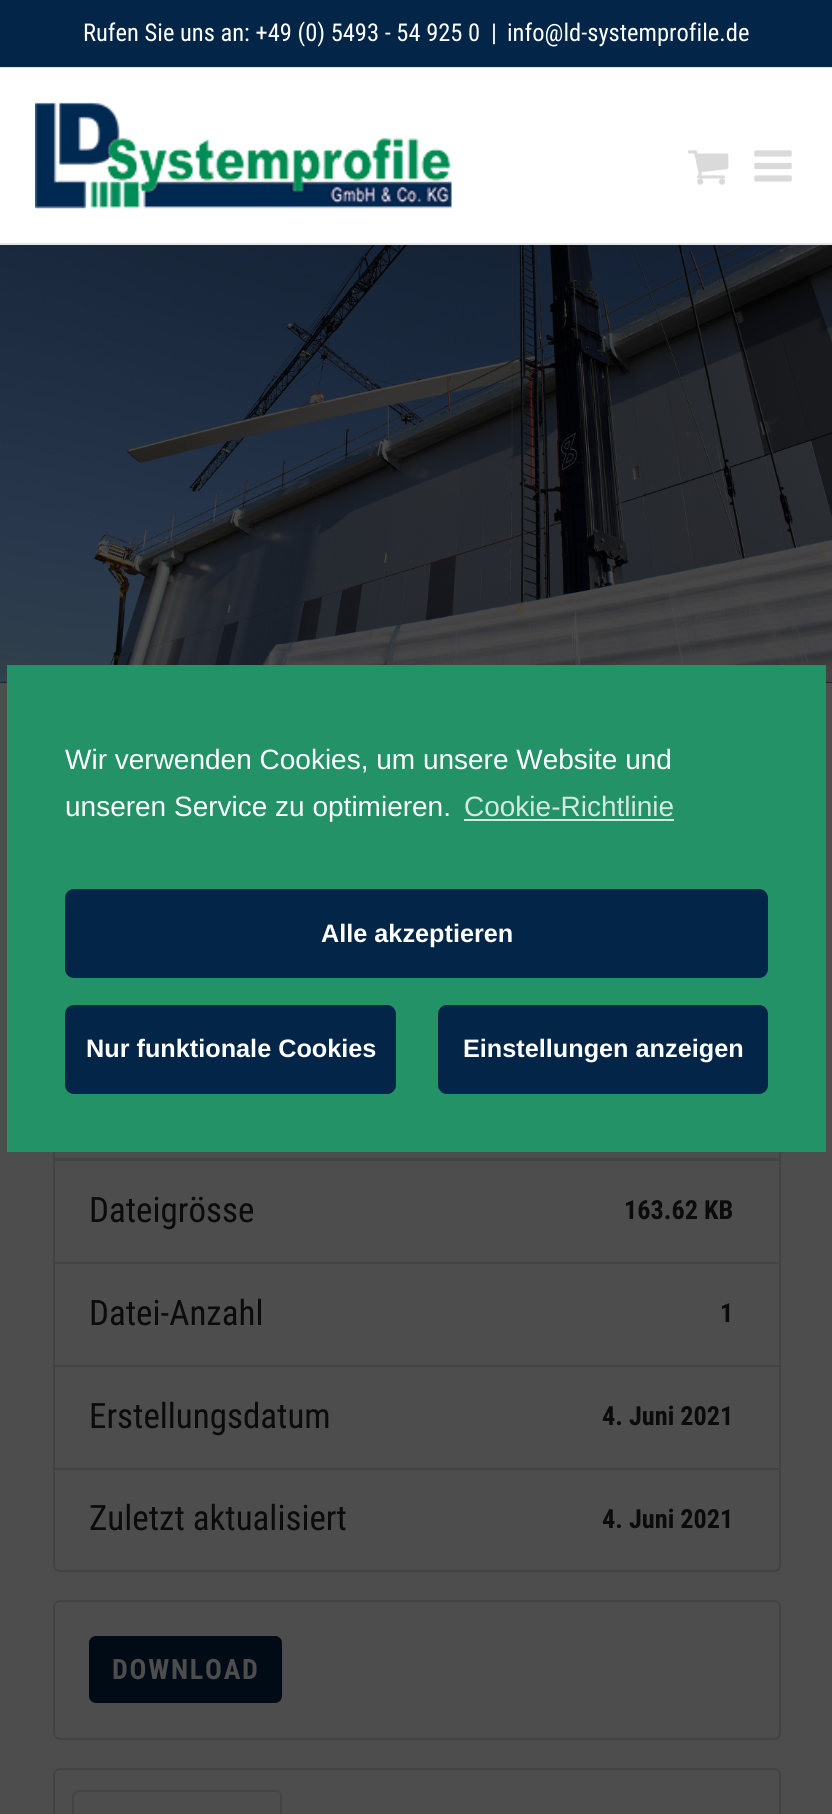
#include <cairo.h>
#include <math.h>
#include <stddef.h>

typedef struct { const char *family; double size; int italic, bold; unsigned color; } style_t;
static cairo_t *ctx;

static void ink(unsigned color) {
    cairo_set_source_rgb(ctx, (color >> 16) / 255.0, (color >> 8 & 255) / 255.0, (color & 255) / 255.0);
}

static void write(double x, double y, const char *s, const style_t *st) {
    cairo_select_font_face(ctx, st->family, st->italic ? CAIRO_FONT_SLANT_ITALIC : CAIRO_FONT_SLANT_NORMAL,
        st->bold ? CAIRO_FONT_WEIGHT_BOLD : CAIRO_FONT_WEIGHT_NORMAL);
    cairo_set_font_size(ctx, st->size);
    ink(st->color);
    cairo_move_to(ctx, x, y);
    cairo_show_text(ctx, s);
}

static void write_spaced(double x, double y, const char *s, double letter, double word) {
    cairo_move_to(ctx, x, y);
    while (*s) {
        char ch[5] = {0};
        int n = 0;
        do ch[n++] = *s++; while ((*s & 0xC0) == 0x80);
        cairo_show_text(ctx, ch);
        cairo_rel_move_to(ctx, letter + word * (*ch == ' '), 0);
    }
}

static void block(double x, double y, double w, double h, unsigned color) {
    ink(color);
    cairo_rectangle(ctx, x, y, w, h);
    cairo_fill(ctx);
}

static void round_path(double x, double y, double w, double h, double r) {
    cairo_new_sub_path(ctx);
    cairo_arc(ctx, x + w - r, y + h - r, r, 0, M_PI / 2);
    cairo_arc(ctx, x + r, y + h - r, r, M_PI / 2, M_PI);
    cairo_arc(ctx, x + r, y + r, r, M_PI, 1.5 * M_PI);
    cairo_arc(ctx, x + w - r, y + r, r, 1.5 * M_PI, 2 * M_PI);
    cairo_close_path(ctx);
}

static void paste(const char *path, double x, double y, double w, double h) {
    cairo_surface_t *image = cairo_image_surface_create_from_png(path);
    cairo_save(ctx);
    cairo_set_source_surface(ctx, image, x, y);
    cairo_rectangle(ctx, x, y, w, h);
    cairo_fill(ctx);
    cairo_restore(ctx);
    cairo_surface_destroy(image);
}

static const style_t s1 = {"Roboto Condensed", 24.5, 0, 0, 0xffffff};
static const style_t s2 = {"Roboto Condensed", 35, 0, 0, 0x0b0b0b};
static const style_t s3 = {"Roboto Condensed", 26.25, 0, 1, 0x0b0b0b};
static const style_t s4 = {"Liberation Sans", 28, 0, 0, 0xffffff};
static const style_t s5 = {"Liberation Sans", 28, 0, 0, 0xd3e9e1};
static const style_t s6 = {"Liberation Sans", 25.25, 0, 1, 0xffffff};

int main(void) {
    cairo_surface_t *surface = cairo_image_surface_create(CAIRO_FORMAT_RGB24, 832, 1814);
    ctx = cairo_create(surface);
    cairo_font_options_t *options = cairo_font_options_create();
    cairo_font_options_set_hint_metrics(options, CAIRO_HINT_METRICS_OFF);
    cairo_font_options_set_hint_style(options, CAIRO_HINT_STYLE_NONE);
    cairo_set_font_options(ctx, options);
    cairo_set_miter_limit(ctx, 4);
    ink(0x4d4d4d);
    cairo_paint(ctx);
    block(0, 0, 832, 67, 0x032548);
    block(0, 67, 832, 1, 0xe5e5e5);
    write(83, 41, "Rufen Sie uns an: +49 (0) 5493 - 54 925 0", &s1);
    write(491, 41, "|", &s1);
    write(507, 41, "info@ld-systemprofile.de", &s1);
    block(0, 68, 832, 175, 0xffffff);
    block(0, 243, 832, 2, 0xe5e5e5);
    paste("pic1.png", 35, 102, 417, 107);
    paste("pic2.png", 687, 150, 42, 35);
    paste("pic3.png", 754, 150, 38, 32);
    block(0, 682, 832, 1, 0x010b16);
    paste("pic4.png", 0, 245, 832, 438);
    cairo_rectangle(ctx, 54, 1056, 726, 103);
    ink(0x434343);
    cairo_stroke(ctx);
    cairo_rectangle(ctx, 54, 1160, 726, 103);
    cairo_stroke(ctx);
    write(89, 1222, "Dateigrösse", &s2);
    write(624, 1219, "163.62 KB", &s3);
    cairo_rectangle(ctx, 54, 1263, 726, 103);
    ink(0x434343);
    cairo_stroke(ctx);
    write(89, 1325, "Datei-Anzahl", &s2);
    write(720, 1322, "1", &s3);
    cairo_rectangle(ctx, 54, 1366, 726, 103);
    ink(0x434343);
    cairo_stroke(ctx);
    write(89, 1428, "Erstellungsdatum", &s2);
    write(602, 1425, "4. Juni 2021", &s3);
    ink(0x4d4d4d);
    cairo_new_path(ctx);
    cairo_move_to(ctx, 54, 1469);
    cairo_line_to(ctx, 780, 1469);
    cairo_line_to(ctx, 780, 1565);
    cairo_curve_to(ctx, 780, 1568.5, 777.5, 1571, 774, 1571);
    cairo_line_to(ctx, 60, 1571);
    cairo_curve_to(ctx, 56.5, 1571, 54, 1568.5, 54, 1565);
    cairo_close_path(ctx);
    cairo_fill_preserve(ctx);
    ink(0x434343);
    cairo_stroke(ctx);
    write(89, 1530, "Zuletzt aktualisiert", &s2);
    write(602, 1528, "4. Juni 2021", &s3);
    round_path(54, 1601, 726, 138, 6);
    ink(0x434343);
    cairo_stroke(ctx);
    ink(0x010b16);
    round_path(90, 1637, 191, 65, 6);
    cairo_fill_preserve(ctx);
    cairo_stroke(ctx);
    cairo_set_font_size(ctx, 28);
    ink(0x4d4d4d);
    write_spaced(112, 1679, "DOWNLOAD", 1.75, 0);
    round_path(54, 1769, 726, 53, 6);
    ink(0x434343);
    cairo_stroke(ctx);
    ink(0x434445);
    cairo_new_path(ctx);
    cairo_move_to(ctx, 79, 1792);
    cairo_curve_to(ctx, 77, 1792, 76, 1793, 75, 1794);
    cairo_line_to(ctx, 74, 1792);
    cairo_line_to(ctx, 77, 1790);
    cairo_line_to(ctx, 277, 1790);
    cairo_line_to(ctx, 280, 1792);
    cairo_line_to(ctx, 279, 1793);
    cairo_curve_to(ctx, 278, 1792, 276, 1792, 275, 1792);
    cairo_close_path(ctx);
    cairo_fill(ctx);
    cairo_new_path(ctx);
    cairo_move_to(ctx, 280, 1792);
    cairo_line_to(ctx, 282, 1795);
    cairo_line_to(ctx, 282, 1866);
    cairo_line_to(ctx, 280, 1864);
    cairo_line_to(ctx, 280, 1796);
    cairo_line_to(ctx, 279, 1793);
    cairo_close_path(ctx);
    cairo_fill(ctx);
    cairo_new_path(ctx);
    cairo_move_to(ctx, 72, 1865);
    cairo_line_to(ctx, 72, 1797);
    cairo_curve_to(ctx, 72, 1795, 73, 1793, 74, 1792);
    cairo_line_to(ctx, 75, 1794);
    cairo_curve_to(ctx, 74, 1794, 74, 1796, 74, 1797);
    cairo_line_to(ctx, 74, 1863);
    cairo_close_path(ctx);
    cairo_fill(ctx);
    block(7, 665, 819, 487, 0x239267);
    write(65, 769, "Wir verwenden Cookies, um unsere Website und", &s4);
    write(65, 816, "unseren Service zu optimieren.", &s4);
    write(464, 816, "Cookie-Richtlinie", &s5);
    block(464, 819, 210, 2, 0xd3e9e1);
    ink(0x032548);
    round_path(67, 891, 699, 85, 7);
    cairo_fill_preserve(ctx);
    cairo_set_line_width(ctx, 4);
    cairo_stroke(ctx);
    write(321, 942, "Alle akzeptieren", &s6);
    ink(0x032548);
    round_path(67, 1007, 327, 85, 7);
    cairo_fill_preserve(ctx);
    cairo_stroke(ctx);
    write(86, 1057, "Nur funktionale Cookies", &s6);
    ink(0x032548);
    round_path(440, 1007, 326, 85, 7);
    cairo_fill_preserve(ctx);
    cairo_stroke(ctx);
    write(463, 1057, "Einstellungen anzeigen", &s6);
    cairo_surface_write_to_png(surface, "screenshot.png");
    cairo_font_options_destroy(options);
    cairo_destroy(ctx);
    cairo_surface_destroy(surface);
    return 0;
}
